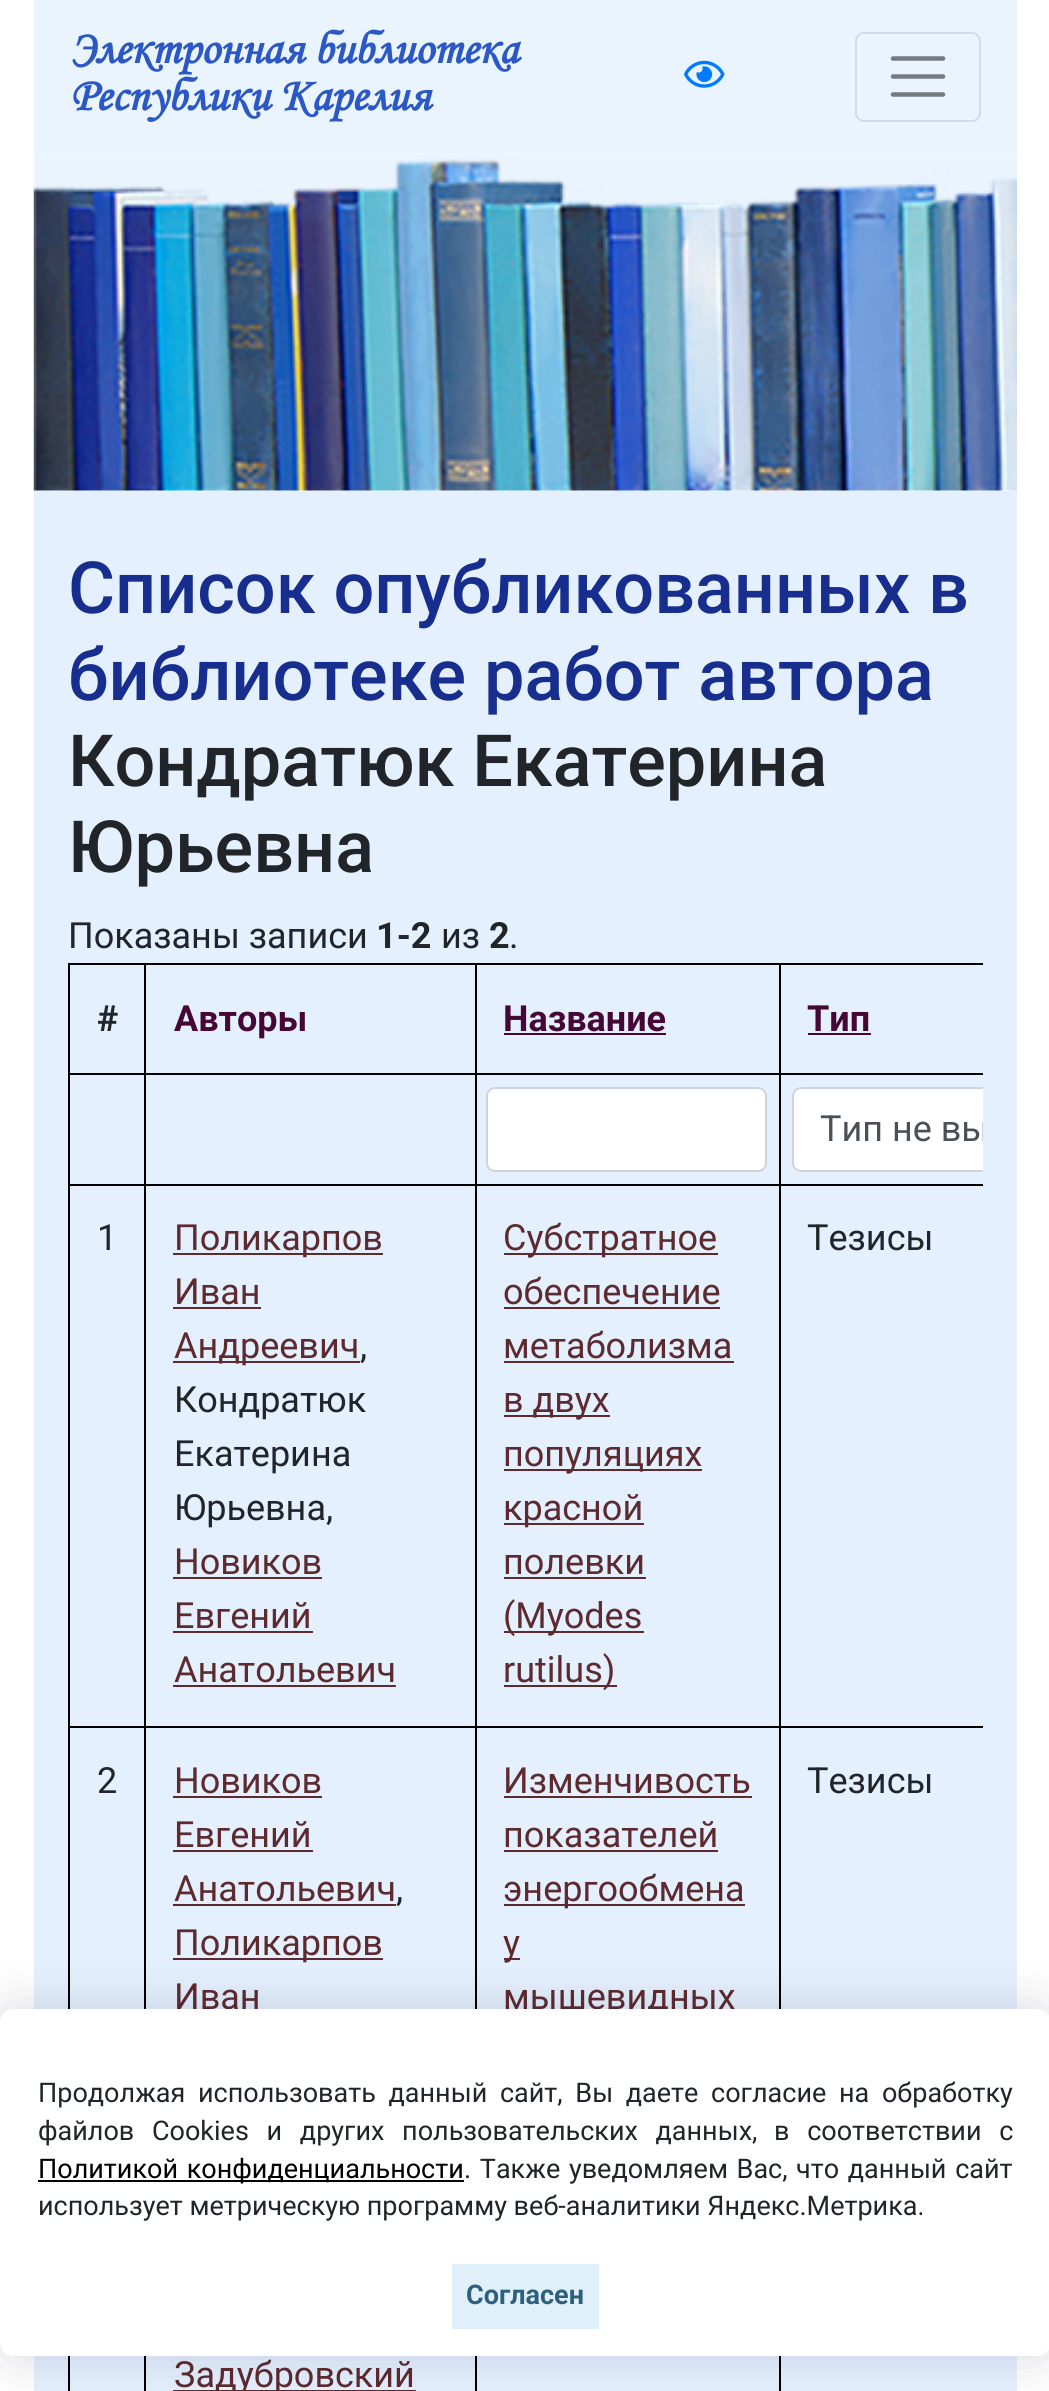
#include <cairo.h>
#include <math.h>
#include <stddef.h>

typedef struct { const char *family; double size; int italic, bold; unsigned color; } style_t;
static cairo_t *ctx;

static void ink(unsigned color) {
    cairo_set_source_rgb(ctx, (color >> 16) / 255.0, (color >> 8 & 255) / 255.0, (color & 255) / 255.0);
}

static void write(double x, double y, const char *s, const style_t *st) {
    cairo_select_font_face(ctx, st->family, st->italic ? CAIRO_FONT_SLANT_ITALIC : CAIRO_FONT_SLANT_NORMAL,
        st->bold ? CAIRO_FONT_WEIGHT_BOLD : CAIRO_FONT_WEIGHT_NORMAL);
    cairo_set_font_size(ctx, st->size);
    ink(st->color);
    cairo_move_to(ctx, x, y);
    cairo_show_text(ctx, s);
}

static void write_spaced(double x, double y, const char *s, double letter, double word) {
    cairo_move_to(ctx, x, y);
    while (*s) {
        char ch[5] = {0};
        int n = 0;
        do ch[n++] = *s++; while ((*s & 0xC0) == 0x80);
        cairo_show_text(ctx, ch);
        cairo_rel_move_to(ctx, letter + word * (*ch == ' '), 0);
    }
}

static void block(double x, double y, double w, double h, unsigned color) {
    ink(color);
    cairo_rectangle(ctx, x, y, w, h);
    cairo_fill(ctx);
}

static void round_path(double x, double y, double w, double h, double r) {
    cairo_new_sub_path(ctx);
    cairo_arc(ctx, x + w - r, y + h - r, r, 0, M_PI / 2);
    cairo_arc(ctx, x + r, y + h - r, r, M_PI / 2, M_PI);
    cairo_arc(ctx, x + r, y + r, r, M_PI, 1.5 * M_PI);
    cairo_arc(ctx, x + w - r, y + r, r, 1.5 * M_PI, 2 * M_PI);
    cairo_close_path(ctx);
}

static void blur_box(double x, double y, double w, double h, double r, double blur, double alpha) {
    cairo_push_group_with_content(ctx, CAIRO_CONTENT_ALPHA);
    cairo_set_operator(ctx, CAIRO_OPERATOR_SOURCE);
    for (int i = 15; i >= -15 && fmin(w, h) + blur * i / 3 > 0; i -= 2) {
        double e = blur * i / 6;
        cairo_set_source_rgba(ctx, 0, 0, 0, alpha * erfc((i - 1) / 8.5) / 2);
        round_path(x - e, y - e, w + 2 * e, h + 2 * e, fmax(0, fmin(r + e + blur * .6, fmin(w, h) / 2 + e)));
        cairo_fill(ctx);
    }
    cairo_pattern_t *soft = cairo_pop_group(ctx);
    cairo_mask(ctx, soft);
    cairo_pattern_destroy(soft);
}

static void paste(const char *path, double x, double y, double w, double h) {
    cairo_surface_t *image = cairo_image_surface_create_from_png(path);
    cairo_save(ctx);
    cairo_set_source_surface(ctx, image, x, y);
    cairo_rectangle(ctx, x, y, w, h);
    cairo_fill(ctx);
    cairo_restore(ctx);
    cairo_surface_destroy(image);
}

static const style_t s1 = {"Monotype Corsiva", 46.75, 1, 1, 0x2c58c5};
static const style_t s2 = {"Roboto Medium", 72, 0, 0, 0x172e8e};
static const style_t s3 = {"Roboto Medium", 72, 0, 0, 0x212529};
static const style_t s4 = {"Roboto", 36, 0, 0, 0x212529};
static const style_t s5 = {"Roboto", 36, 0, 1, 0x212529};
static const style_t s6 = {"Roboto", 36, 0, 1, 0x470736};
static const style_t s7 = {"Roboto", 36, 0, 0, 0x495057};
static const style_t s8 = {"Roboto", 36, 0, 0, 0x5d2b2f};
static const style_t s9 = {"Roboto", 27, 0, 0, 0x212529};
static const style_t s10 = {"Roboto", 27, 0, 1, 0x2d607d};

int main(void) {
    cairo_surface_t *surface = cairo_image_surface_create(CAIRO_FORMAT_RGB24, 1049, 2391);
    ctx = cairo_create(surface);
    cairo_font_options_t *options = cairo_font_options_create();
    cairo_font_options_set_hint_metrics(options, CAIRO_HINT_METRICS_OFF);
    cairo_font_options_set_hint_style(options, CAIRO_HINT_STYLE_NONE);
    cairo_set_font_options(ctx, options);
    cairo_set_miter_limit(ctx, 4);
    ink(0xffffff);
    cairo_paint(ctx);
    block(34, 0, 983, 153, 0xeaf4fe);
    write(70, 63, "Электронная библиотека", &s1);
    write(70, 110, "Республики Карелия", &s1);
    paste("pic1.png", 684, 60, 41, 28);
    round_path(856, 33, 124, 88, 8);
    ink(0xd3dce5);
    cairo_stroke(ctx);
    cairo_new_path(ctx);
    cairo_move_to(ctx, 893, 58.5);
    cairo_line_to(ctx, 943, 58.5);
    cairo_move_to(ctx, 893, 76.5);
    cairo_line_to(ctx, 943, 76.5);
    cairo_move_to(ctx, 893, 94.5);
    cairo_line_to(ctx, 943, 94.5);
    ink(0x757a7f);
    cairo_set_line_width(ctx, 4.5);
    cairo_set_line_cap(ctx, CAIRO_LINE_CAP_ROUND);
    cairo_stroke(ctx);
    paste("pic2.png", 33, 153, 984, 338);
    block(34, 491, 983, 1900, 0xe5f0ff);
    write(68, 613, "Список опубликованных в", &s2);
    write(68, 700, "библиотеке работ автора", &s2);
    write(68, 786, "Кондратюк Екатерина", &s3);
    write(68, 872, "Юрьевна", &s3);
    write(68, 948, "Показаны записи", &s4);
    write(376, 948, "1-2", &s5);
    write(441, 948, "из", &s4);
    write(489, 948, "2", &s5);
    write(509, 948, ".", &s4);
    block(68, 963, 915, 2, 0x000000);
    block(68, 1073, 915, 2, 0x000000);
    block(68, 1184, 915, 2, 0x000000);
    block(68, 1726, 915, 2, 0x000000);
    block(68, 1726, 2, 665, 0x000000);
    block(68, 1184, 2, 544, 0x000000);
    block(68, 1073, 2, 113, 0x000000);
    block(68, 963, 2, 113, 0x000000);
    write(97, 1031, "#", &s5);
    write(174, 1031, "Авторы", &s6);
    write(503, 1031, "Название", &s6);
    block(504, 1033, 162, 2, 0x470736);
    write(807, 1031, "Тип", &s6);
    block(808, 1033, 63, 2, 0x470736);
    ink(0xffffff);
    round_path(487, 1088, 279, 83, 8);
    cairo_fill_preserve(ctx);
    ink(0xced4da);
    cairo_set_line_width(ctx, 2);
    cairo_set_line_cap(ctx, CAIRO_LINE_CAP_BUTT);
    cairo_stroke(ctx);
    ink(0xffffff);
    cairo_new_path(ctx);
    cairo_move_to(ctx, 801, 1087);
    cairo_line_to(ctx, 983, 1087);
    cairo_line_to(ctx, 983, 1172);
    cairo_line_to(ctx, 801, 1172);
    cairo_curve_to(ctx, 796, 1172, 792, 1168, 792, 1163);
    cairo_line_to(ctx, 792, 1096);
    cairo_curve_to(ctx, 792, 1091, 796, 1087, 801, 1087);
    cairo_close_path(ctx);
    cairo_fill(ctx);
    cairo_save(ctx);
    cairo_rectangle(ctx, 68, 909, 915, 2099);
    cairo_clip(ctx);
    round_path(793, 1088, 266, 83, 8);
    ink(0xced4da);
    cairo_stroke(ctx);
    write(820, 1141, "Тип не вы", &s7);
    cairo_restore(ctx);
    write(97, 1250, "1", &s4);
    block(173, 1253, 210, 2, 0x5d2b2f);
    write(174, 1250, "Поликарпов", &s8);
    write(174, 1304, "Иван", &s8);
    block(173, 1307, 88, 2, 0x5d2b2f);
    block(173, 1361, 187, 2, 0x5d2b2f);
    write(174, 1358, "Андреевич", &s8);
    write(360, 1358, ",", &s4);
    write(174, 1412, "Кондратюк", &s4);
    write(174, 1466, "Екатерина", &s4);
    write(174, 1520, "Юрьевна,", &s4);
    write(174, 1574, "Новиков", &s8);
    block(173, 1577, 149, 2, 0x5d2b2f);
    write(174, 1628, "Евгений", &s8);
    block(173, 1631, 140, 2, 0x5d2b2f);
    write(174, 1682, "Анатольевич", &s8);
    block(173, 1685, 223, 2, 0x5d2b2f);
    block(504, 1253, 214, 2, 0x5d2b2f);
    write(503, 1250, "Субстратное", &s8);
    write(503, 1304, "обеспечение", &s8);
    block(504, 1307, 216, 2, 0x5d2b2f);
    write(503, 1358, "метаболизма", &s8);
    block(504, 1361, 230, 2, 0x5d2b2f);
    block(504, 1415, 106, 2, 0x5d2b2f);
    write(503, 1412, "в двух", &s8);
    block(504, 1469, 198, 2, 0x5d2b2f);
    write(503, 1466, "популяциях", &s8);
    block(504, 1523, 140, 2, 0x5d2b2f);
    write(503, 1520, "красной", &s8);
    write(503, 1574, "полевки", &s8);
    block(504, 1577, 142, 2, 0x5d2b2f);
    block(504, 1631, 140, 2, 0x5d2b2f);
    write(503, 1628, "(Myodes", &s8);
    block(504, 1685, 113, 2, 0x5d2b2f);
    write(503, 1682, "rutilus)", &s8);
    write(807, 1250, "Тезисы", &s4);
    write(97, 1793, "2", &s4);
    block(144, 963, 2, 1428, 0x000000);
    write(174, 1793, "Новиков", &s8);
    block(173, 1796, 149, 2, 0x5d2b2f);
    write(174, 1847, "Евгений", &s8);
    block(173, 1850, 140, 2, 0x5d2b2f);
    write(174, 1901, "Анатольевич", &s8);
    block(173, 1904, 223, 2, 0x5d2b2f);
    write(396, 1901, ",", &s4);
    block(173, 1958, 210, 2, 0x5d2b2f);
    write(174, 1955, "Поликарпов", &s8);
    write(174, 2009, "Иван", &s8);
    block(173, 2390, 243, 1, 0x5d2b2f);
    write(174, 2387, "Задубровский", &s8);
    block(475, 963, 2, 1428, 0x000000);
    write(503, 1793, "Изменчивость", &s8);
    block(504, 1796, 248, 2, 0x5d2b2f);
    write(503, 1847, "показателей", &s8);
    block(504, 1850, 214, 2, 0x5d2b2f);
    block(504, 1904, 241, 2, 0x5d2b2f);
    write(503, 1901, "энергообмена", &s8);
    block(504, 1958, 16, 2, 0x5d2b2f);
    write(503, 1955, "у", &s8);
    write(503, 2009, "мышевидных", &s8);
    block(779, 963, 2, 1428, 0x000000);
    write(807, 1793, "Тезисы", &s4);
    ink(0x05001f);
    blur_box(0, 2009, 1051, 347, 14, 27, 0.15);
    ink(0xffffff);
    round_path(0, 2009, 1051, 347, 14);
    cairo_fill(ctx);
    cairo_set_font_size(ctx, 27);
    ink(0x212529);
    write_spaced(38, 2102, "Продолжая использовать данный сайт, Вы даете согласие на обработку", 0, 6);
    write_spaced(38, 2140, "файлов Cookies и других пользовательских данных,", 0, 11);
    write_spaced(774, 2140, "в соответствии с", 0, 11);
    block(38, 2180, 426, 2, 0x000000);
    write_spaced(38, 2178, "Политикой конфиденциальности", 0, 2);
    ink(0x212529);
    write_spaced(464, 2178, ". Также уведомляем Вас,", 0, 2);
    write_spaced(796, 2178, "что данный сайт", 0, 2);
    write(38, 2215, "использует метрическую программу веб-аналитики Яндекс.Метрика.", &s9);
    block(452, 2264, 147, 65, 0xe0f0fa);
    write(466, 2304, "Согласен", &s10);
    cairo_surface_write_to_png(surface, "screenshot.png");
    cairo_font_options_destroy(options);
    cairo_destroy(ctx);
    cairo_surface_destroy(surface);
    return 0;
}
